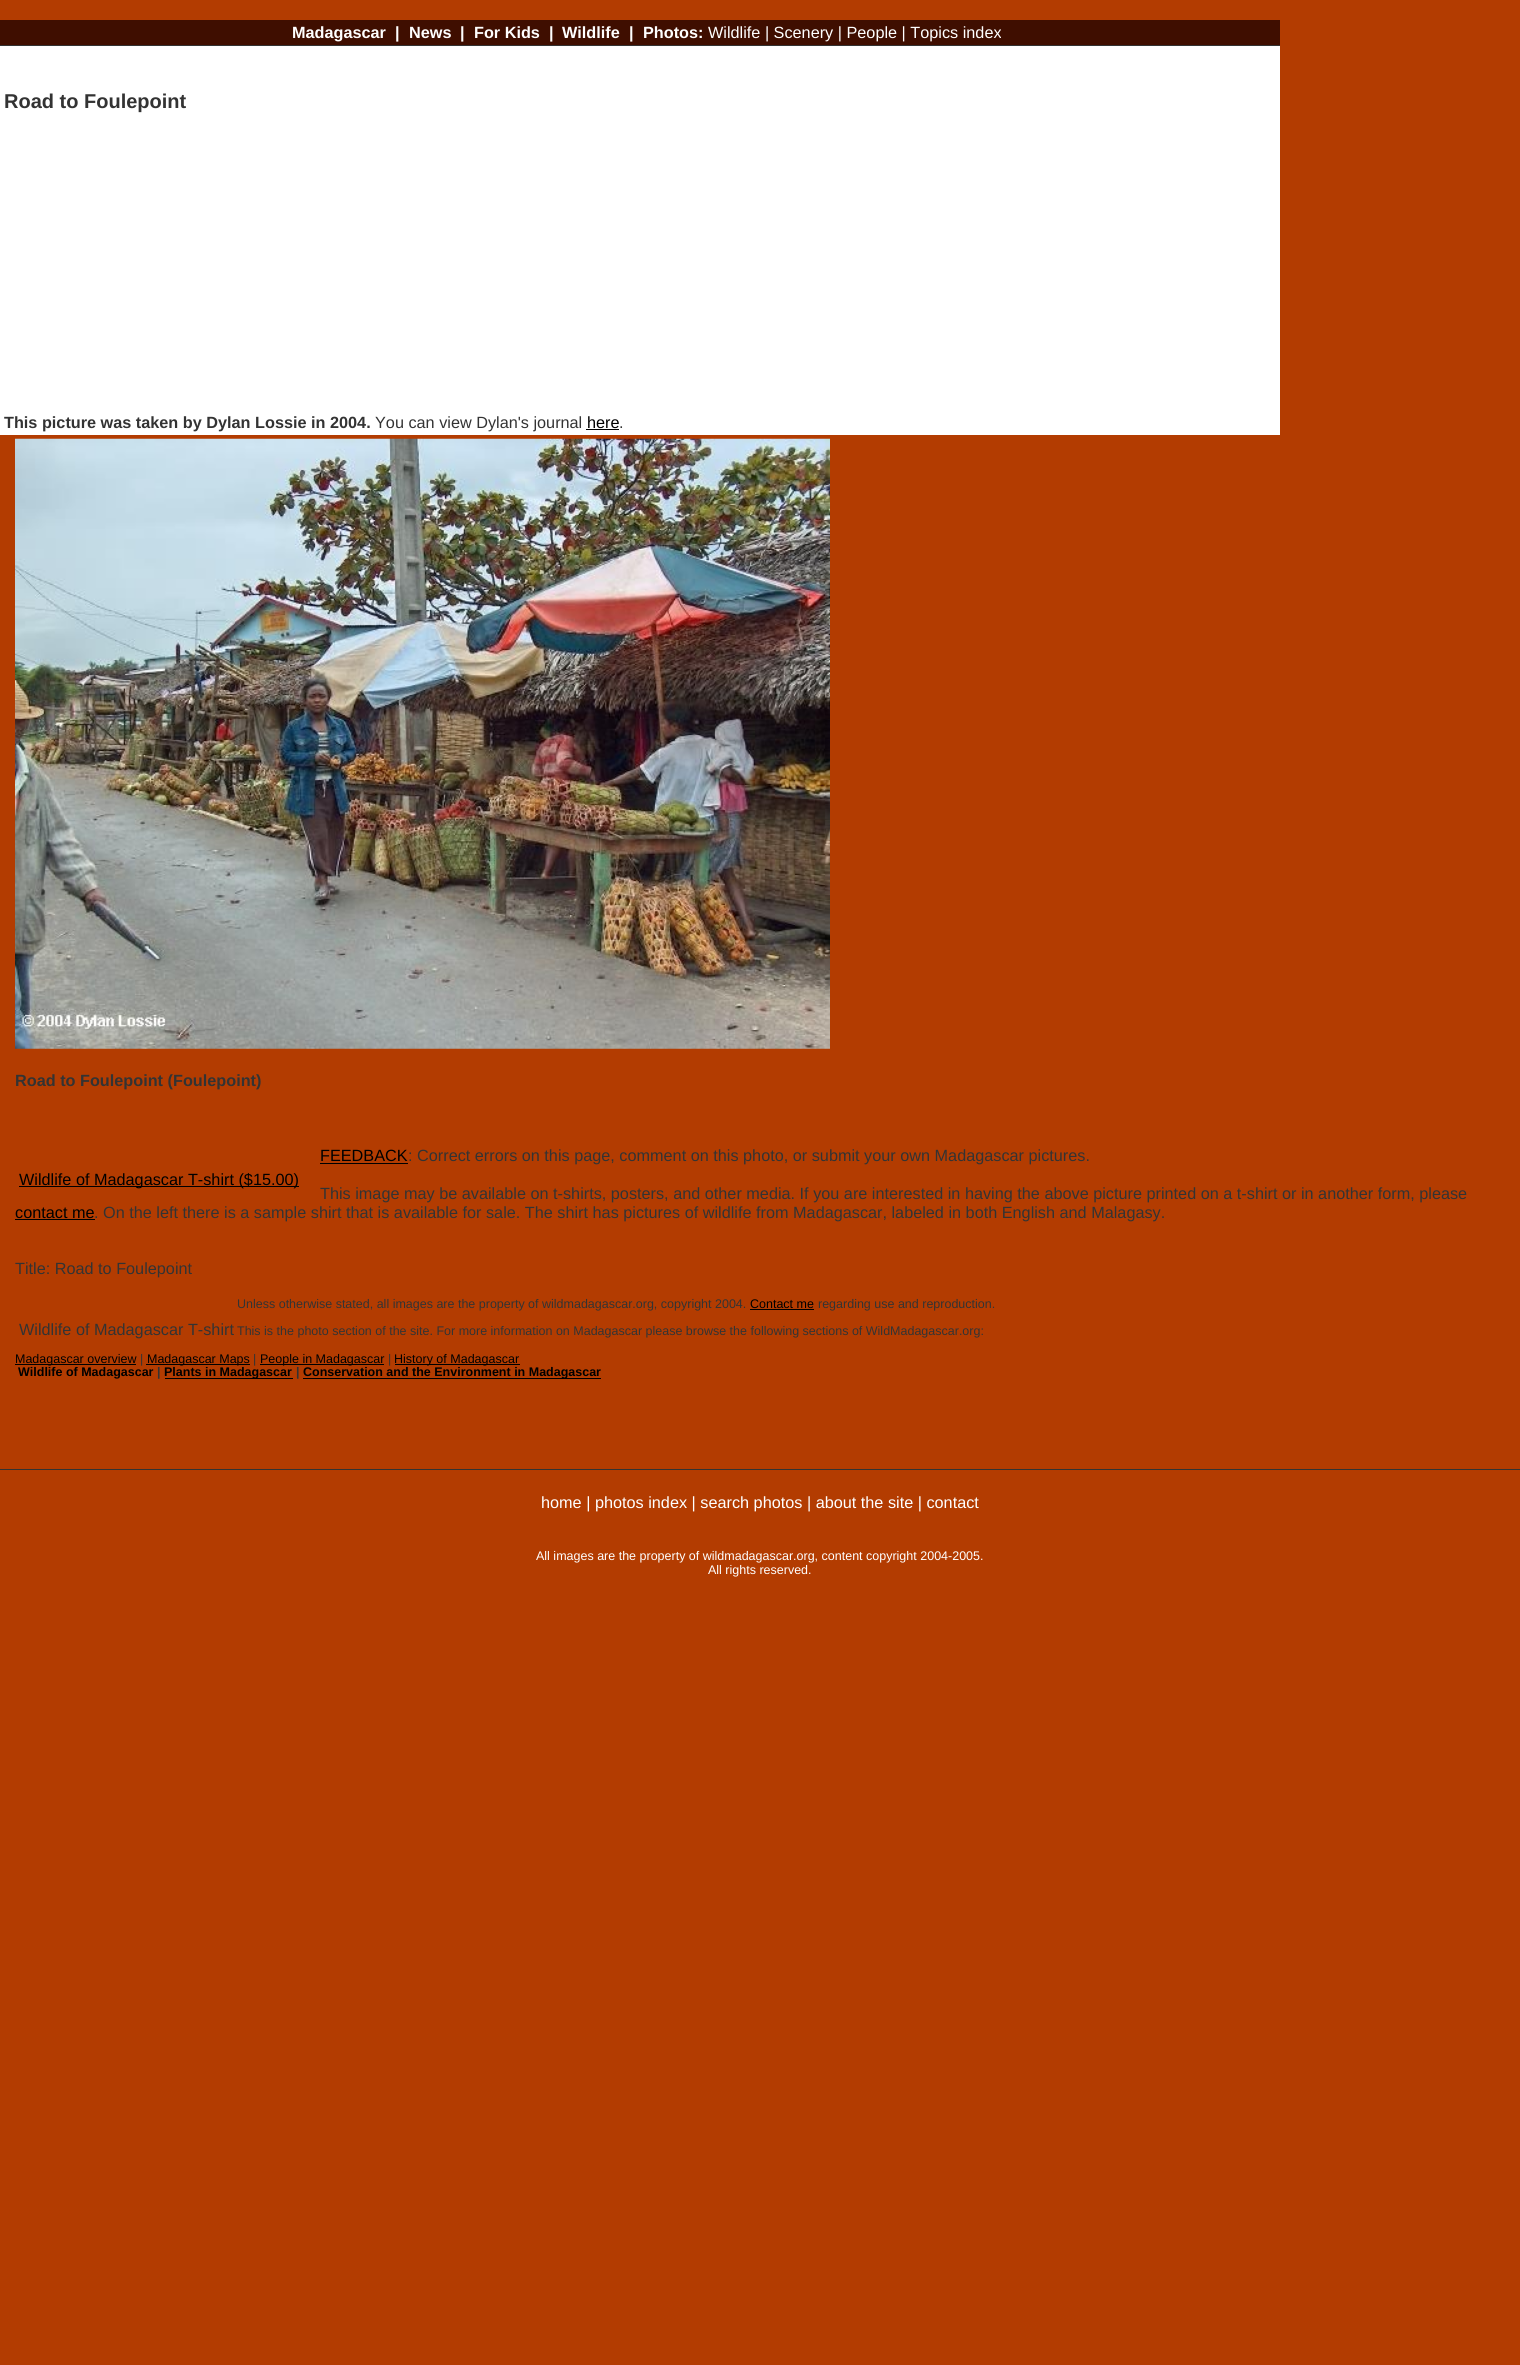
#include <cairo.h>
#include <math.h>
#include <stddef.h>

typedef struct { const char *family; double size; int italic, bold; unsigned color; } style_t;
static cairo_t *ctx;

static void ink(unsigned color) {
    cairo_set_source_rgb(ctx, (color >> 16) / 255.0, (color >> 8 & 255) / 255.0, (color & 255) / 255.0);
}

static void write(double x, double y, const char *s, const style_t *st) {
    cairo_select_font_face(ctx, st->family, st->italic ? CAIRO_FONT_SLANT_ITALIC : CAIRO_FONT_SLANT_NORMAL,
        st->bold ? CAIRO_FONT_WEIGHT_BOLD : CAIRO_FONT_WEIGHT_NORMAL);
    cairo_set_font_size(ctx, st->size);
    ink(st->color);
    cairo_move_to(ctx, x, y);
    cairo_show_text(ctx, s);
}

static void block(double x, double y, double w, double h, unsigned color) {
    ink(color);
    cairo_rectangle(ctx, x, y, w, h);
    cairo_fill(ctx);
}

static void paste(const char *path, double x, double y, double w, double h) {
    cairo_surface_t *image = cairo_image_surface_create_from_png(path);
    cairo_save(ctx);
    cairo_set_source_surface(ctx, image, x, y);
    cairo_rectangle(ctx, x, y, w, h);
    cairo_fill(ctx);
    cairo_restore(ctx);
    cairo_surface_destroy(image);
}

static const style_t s1 = {"Liberation Sans", 16.25, 0, 1, 0xffffff};
static const style_t s2 = {"Liberation Sans", 16.25, 0, 0, 0xffffff};
static const style_t s3 = {"Liberation Sans", 20, 0, 1, 0x333333};
static const style_t s4 = {"Liberation Sans", 16.25, 0, 1, 0x333333};
static const style_t s5 = {"Liberation Sans", 16.25, 0, 0, 0x333333};
static const style_t s6 = {"Liberation Sans", 16.25, 0, 0, 0x000000};
static const style_t s7 = {"Liberation Sans", 12.5, 0, 0, 0x333333};
static const style_t s8 = {"Liberation Sans", 12.5, 0, 0, 0x000000};
static const style_t s9 = {"Liberation Sans", 12.5, 0, 1, 0x000000};
static const style_t s10 = {"Liberation Sans", 12.5, 0, 1, 0x333333};
static const style_t s11 = {"Liberation Sans", 12.5, 0, 0, 0xffffff};

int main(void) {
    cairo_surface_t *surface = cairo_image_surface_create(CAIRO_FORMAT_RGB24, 1520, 2365);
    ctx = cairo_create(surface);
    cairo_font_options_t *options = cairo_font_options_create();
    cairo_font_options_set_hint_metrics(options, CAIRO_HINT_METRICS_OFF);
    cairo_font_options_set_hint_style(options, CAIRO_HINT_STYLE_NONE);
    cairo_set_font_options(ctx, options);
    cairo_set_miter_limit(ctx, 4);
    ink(0xb33c01);
    cairo_paint(ctx);
    block(0, 20, 1280, 25, 0x3f0e00);
    write(292, 38, "Madagascar", &s1);
    write(395, 38, "|", &s1);
    write(409, 38, "News", &s1);
    write(460, 38, "|", &s1);
    write(474, 38, "For Kids", &s1);
    write(549, 38, "|", &s1);
    write(562, 38, "Wildlife", &s1);
    write(629, 38, "|", &s1);
    write(643, 38, "Photos:", &s1);
    write(708, 38, "Wildlife | Scenery | People | Topics index", &s2);
    block(0, 45, 1280, 1, 0x333333);
    block(0, 46, 1280, 389, 0xffffff);
    write(4, 108, "Road to Foulepoint", &s3);
    write(4, 428, "This picture was taken by Dylan Lossie in 2004.", &s4);
    write(375, 428, "You can view Dylan's journal", &s5);
    write(587, 428, "here", &s6);
    write(619, 428, ".", &s5);
    block(586, 429, 33, 1, 0x000000);
    paste("pic1.png", 15, 438, 815, 611);
    write(15, 1086, "Road to Foulepoint (Foulepoint)", &s4);
    write(320, 1161, "FEEDBACK", &s6);
    block(320, 1163, 88, 1, 0x000000);
    write(408, 1161, ": Correct errors on this page, comment on this photo, or submit your own Madagascar pictures.", &s5);
    block(19, 1186, 280, 1, 0x000000);
    write(19, 1185, "Wildlife of Madagascar T-shirt ($15.00)", &s6);
    write(320, 1199, "This image may be available on t-shirts, posters, and other media. If you are interested in having the above picture printed on a t-shirt or in another form, please", &s5);
    write(15, 1218, "contact me", &s6);
    block(15, 1219, 80, 1, 0x000000);
    write(94, 1218, ". On the left there is a sample shirt that is available for sale. The shirt has pictures of wildlife from Madagascar, labeled in both English and Malagasy.", &s5);
    write(15, 1274, "Title: Road to Foulepoint", &s5);
    write(237, 1308, "Unless otherwise stated, all images are the property of wildmadagascar.org, copyright 2004.", &s7);
    write(750, 1308, "Contact me", &s8);
    block(750, 1309, 64, 1, 0x000000);
    write(818, 1308, "regarding use and reproduction.", &s7);
    write(19, 1335, "Wildlife of Madagascar T-shirt", &s5);
    write(237, 1335, "This is the photo section of the site. For more information on Madagascar please browse the following sections of WildMadagascar.org:", &s7);
    block(15, 1364, 121, 1, 0x000000);
    write(15, 1363, "Madagascar overview", &s8);
    write(140, 1363, "|", &s7);
    block(146, 1364, 104, 1, 0x000000);
    write(147, 1363, "Madagascar Maps", &s8);
    write(253, 1363, "|", &s7);
    block(260, 1364, 124, 1, 0x000000);
    write(260, 1363, "People in Madagascar", &s8);
    write(388, 1363, "|", &s7);
    block(395, 1364, 125, 1, 0x000000);
    write(394, 1363, "History of Madagascar", &s8);
    write(18, 1376, "Wildlife of Madagascar", &s9);
    write(157, 1376, "|", &s10);
    block(165, 1378, 128, 1, 0x000000);
    write(164, 1376, "Plants in Madagascar", &s9);
    write(296, 1376, "|", &s10);
    block(303, 1378, 298, 1, 0x000000);
    write(303, 1376, "Conservation and the Environment in Madagascar", &s9);
    block(0, 1469, 1520, 1, 0x333333);
    write(541, 1508, "home | photos index | search photos | about the site | contact", &s2);
    write(536, 1560, "All images are the property of wildmadagascar.org, content copyright 2004-2005.", &s11);
    write(708, 1574, "All rights reserved.", &s11);
    cairo_surface_write_to_png(surface, "screenshot.png");
    cairo_font_options_destroy(options);
    cairo_destroy(ctx);
    cairo_surface_destroy(surface);
    return 0;
}
